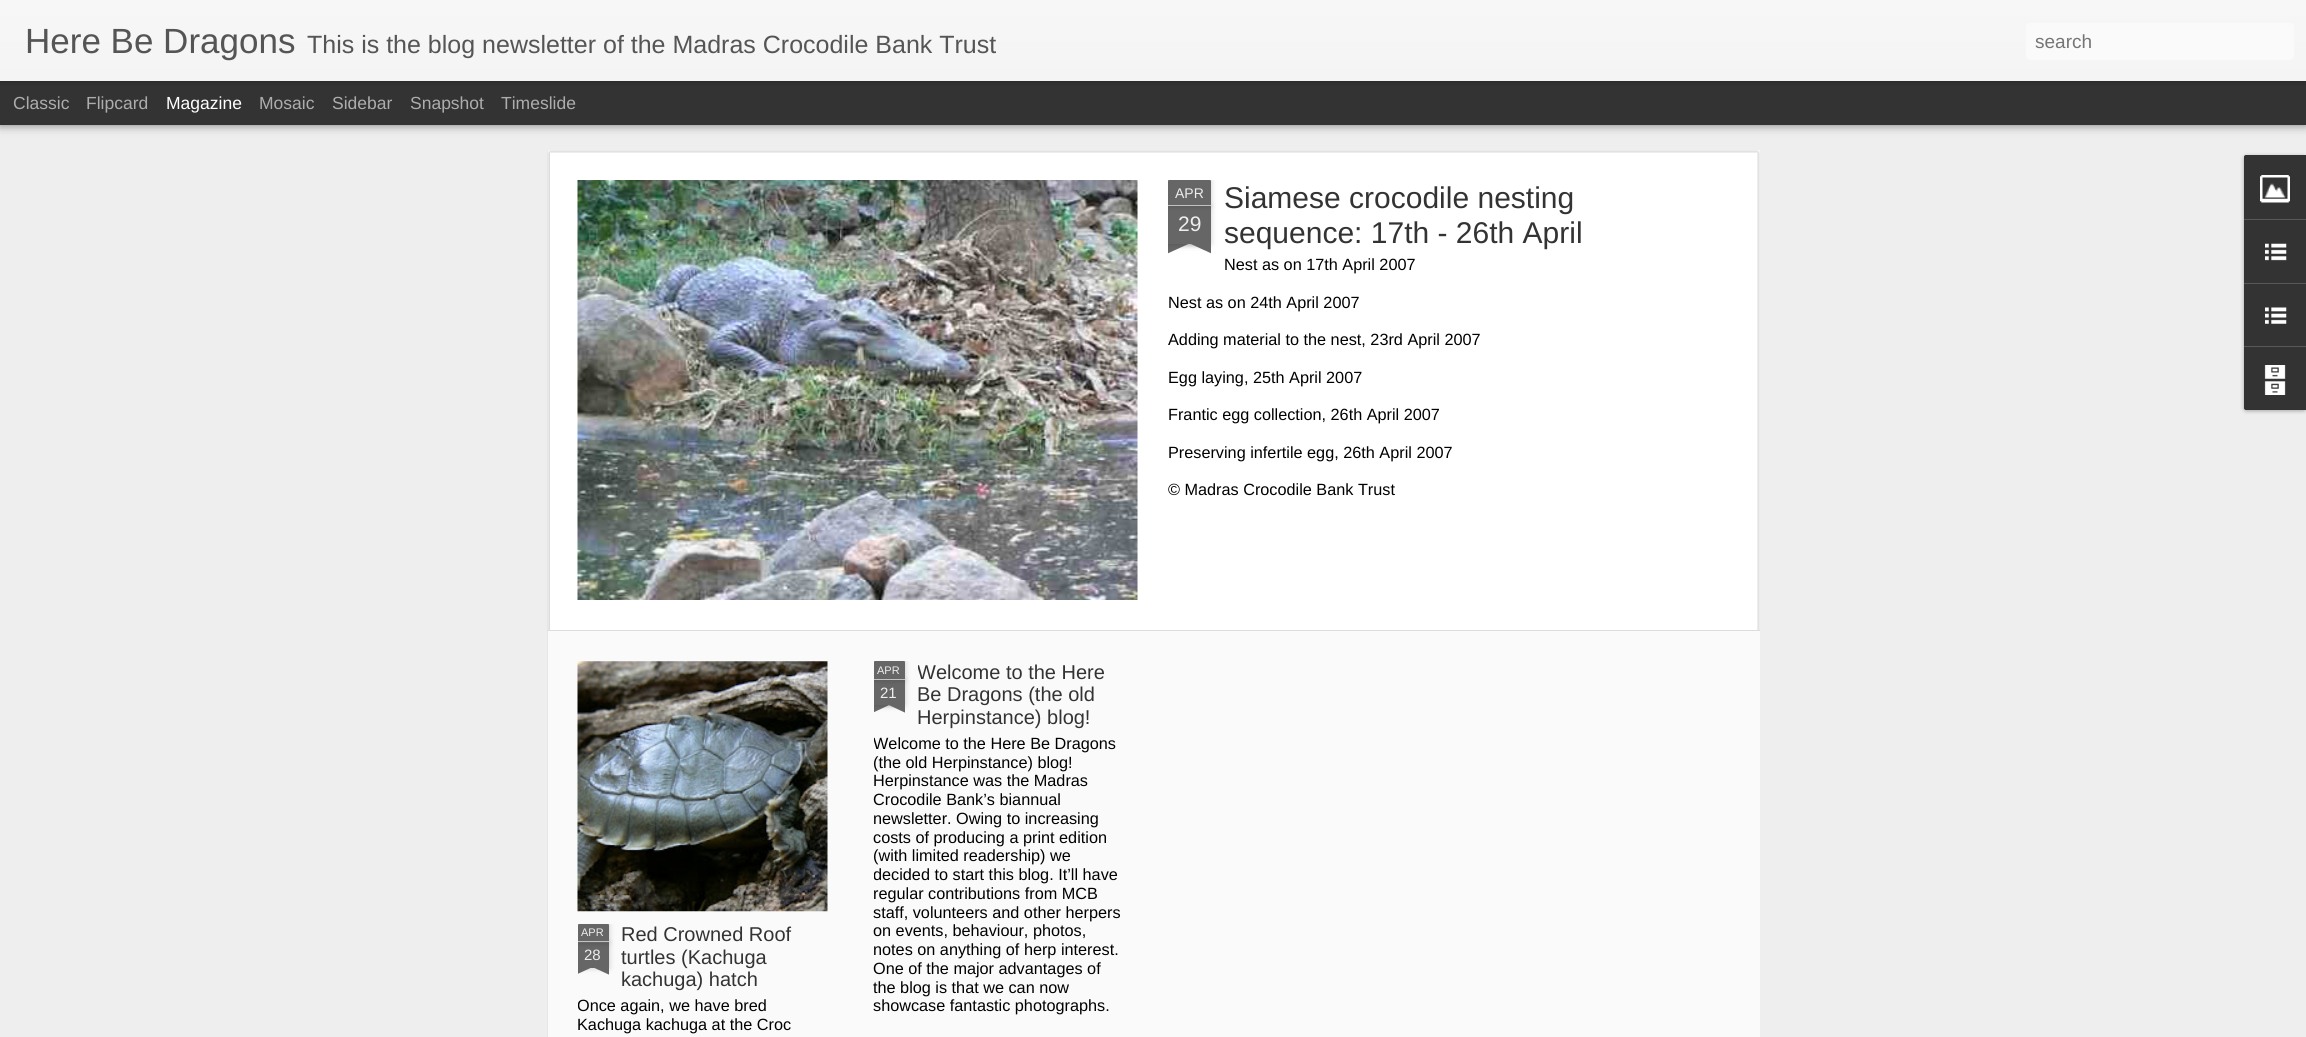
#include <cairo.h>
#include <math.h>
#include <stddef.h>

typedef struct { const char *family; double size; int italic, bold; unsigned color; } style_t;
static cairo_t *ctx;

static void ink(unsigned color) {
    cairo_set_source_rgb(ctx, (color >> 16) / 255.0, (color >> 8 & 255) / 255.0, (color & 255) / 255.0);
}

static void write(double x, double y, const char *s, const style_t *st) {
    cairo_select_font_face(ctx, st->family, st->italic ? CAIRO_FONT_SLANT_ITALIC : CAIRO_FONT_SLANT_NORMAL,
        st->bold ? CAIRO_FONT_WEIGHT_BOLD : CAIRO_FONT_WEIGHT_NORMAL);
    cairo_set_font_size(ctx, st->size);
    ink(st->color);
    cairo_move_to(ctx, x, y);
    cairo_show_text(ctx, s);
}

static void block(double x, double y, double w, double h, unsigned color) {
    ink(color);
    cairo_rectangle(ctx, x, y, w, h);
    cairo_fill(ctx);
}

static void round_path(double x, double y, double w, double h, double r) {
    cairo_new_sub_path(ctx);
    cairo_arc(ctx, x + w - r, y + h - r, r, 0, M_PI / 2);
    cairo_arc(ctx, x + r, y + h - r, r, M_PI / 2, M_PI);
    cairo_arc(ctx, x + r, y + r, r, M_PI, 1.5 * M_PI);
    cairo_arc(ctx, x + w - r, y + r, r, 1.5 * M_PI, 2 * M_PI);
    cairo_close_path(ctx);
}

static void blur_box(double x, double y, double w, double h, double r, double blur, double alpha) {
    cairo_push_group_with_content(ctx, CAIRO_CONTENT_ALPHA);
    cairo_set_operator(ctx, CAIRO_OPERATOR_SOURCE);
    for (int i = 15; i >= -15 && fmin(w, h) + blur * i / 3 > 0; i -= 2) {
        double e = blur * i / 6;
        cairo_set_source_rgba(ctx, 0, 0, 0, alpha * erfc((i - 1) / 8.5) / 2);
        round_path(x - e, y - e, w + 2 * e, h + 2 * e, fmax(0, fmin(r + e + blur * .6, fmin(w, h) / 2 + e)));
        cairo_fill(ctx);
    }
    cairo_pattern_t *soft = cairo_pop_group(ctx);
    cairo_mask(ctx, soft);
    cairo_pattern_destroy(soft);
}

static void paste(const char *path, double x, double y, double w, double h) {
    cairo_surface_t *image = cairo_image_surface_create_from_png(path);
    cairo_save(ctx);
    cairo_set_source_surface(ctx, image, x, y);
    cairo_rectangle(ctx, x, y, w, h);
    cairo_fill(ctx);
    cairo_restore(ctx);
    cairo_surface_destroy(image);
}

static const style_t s1 = {"Liberation Sans", 35, 0, 0, 0x555555};
static const style_t s2 = {"Liberation Sans", 25, 0, 0, 0x555555};
static const style_t s3 = {"Liberation Sans", 19, 0, 0, 0x757575};
static const style_t s4 = {"Liberation Sans", 17.5, 0, 0, 0xadadad};
static const style_t s5 = {"Liberation Sans", 17.5, 0, 0, 0xffffff};
static const style_t s6 = {"Liberation Sans", 14, 0, 0, 0xeeeeee};
static const style_t s7 = {"Liberation Sans", 21, 0, 0, 0xeeeeee};
static const style_t s8 = {"Liberation Sans", 30, 0, 0, 0x333333};
static const style_t s9 = {"Liberation Sans", 16.25, 0, 0, 0x000000};
static const style_t s10 = {"Liberation Sans", 11, 0, 0, 0xeeeeee};
static const style_t s11 = {"Liberation Sans", 15, 0, 0, 0xeeeeee};
static const style_t s12 = {"Liberation Sans", 20, 0, 0, 0x333333};

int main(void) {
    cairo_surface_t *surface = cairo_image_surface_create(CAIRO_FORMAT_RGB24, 2306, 1037);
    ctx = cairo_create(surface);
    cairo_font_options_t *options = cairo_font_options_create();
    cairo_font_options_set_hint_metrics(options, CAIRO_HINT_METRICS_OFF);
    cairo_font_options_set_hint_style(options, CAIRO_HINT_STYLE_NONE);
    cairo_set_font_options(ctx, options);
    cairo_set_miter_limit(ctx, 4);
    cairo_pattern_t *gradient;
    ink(0xeeeeee);
    cairo_paint(ctx);
    ink(0x000000);
    blur_box(0, 81, 2306, 44, 0, 5, 0.5);
    block(0, 81, 2306, 44, 0x333333);
    ink(0x000000);
    blur_box(0, 0, 2306, 81, 0, 3, 0.3);
    gradient = cairo_pattern_create_linear(0, 0, 0, 81);
    cairo_pattern_add_color_stop_rgba(gradient, 0, 0.969, 0.969, 0.969, 1);
    cairo_pattern_add_color_stop_rgba(gradient, 1, 0.957, 0.957, 0.957, 1);
    cairo_set_source(ctx, gradient);
    cairo_pattern_destroy(gradient);
    cairo_rectangle(ctx, 0, 0, 2306, 81);
    cairo_fill(ctx);
    write(25, 53, "Here Be Dragons", &s1);
    write(307, 53, "This is the blog newsletter of the Madras Crocodile Bank Trust", &s2);
    ink(0xfafafa);
    round_path(2026, 23, 268, 37, 4);
    cairo_fill(ctx);
    write(2035, 48, "search", &s3);
    write(13, 109, "Classic", &s4);
    write(86, 109, "Flipcard", &s4);
    write(166, 109, "Magazine", &s5);
    write(259, 109, "Mosaic", &s4);
    write(332, 109, "Sidebar", &s4);
    write(410, 109, "Snapshot", &s4);
    write(501, 109, "Timeslide", &s4);
    block(548, 150, 1212, 480, 0xffffff);
    paste("pic1.png", 547, 150, 1213, 887);
    paste("pic2.png", 577, 180, 561, 420);
    cairo_save(ctx);
    cairo_rectangle(ctx, 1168, 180, 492, 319);
    cairo_clip(ctx);
    ink(0x000000);
    blur_box(1168, 206, 43, 38, 0, 3, 0.2);
    cairo_restore(ctx);
    block(1168, 206, 43, 38, 0x666666);
    cairo_save(ctx);
    cairo_rectangle(ctx, 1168, 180, 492, 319);
    cairo_clip(ctx);
    ink(0x000000);
    blur_box(1168, 180, 43, 26, 1, 3, 0.2);
    cairo_restore(ctx);
    cairo_new_path(ctx);
    cairo_move_to(ctx, 1169, 180);
    cairo_line_to(ctx, 1210, 180);
    cairo_curve_to(ctx, 1210.5, 180, 1211, 180.5, 1211, 181);
    cairo_line_to(ctx, 1211, 206);
    cairo_line_to(ctx, 1168, 206);
    cairo_line_to(ctx, 1168, 181);
    cairo_curve_to(ctx, 1168, 180.5, 1168.5, 180, 1169, 180);
    cairo_close_path(ctx);
    cairo_fill(ctx);
    block(1168, 205, 43, 1, 0xc2c2c2);
    write(1175, 198, "APR", &s6);
    write(1178, 231, "29", &s7);
    cairo_save(ctx);
    cairo_rectangle(ctx, 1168, 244, 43, 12);
    cairo_clip(ctx);
    ink(0x000000);
    blur_box(1156, 231, 63, 13, 0, 3, 0.2);
    cairo_restore(ctx);
    cairo_save(ctx);
    cairo_rectangle(ctx, 1168, 244, 43, 12);
    cairo_clip(ctx);
    ink(0x666666);
    cairo_new_path(ctx);
    cairo_move_to(ctx, 1157, 245);
    cairo_line_to(ctx, 1213, 219);
    cairo_line_to(ctx, 1219, 230);
    cairo_line_to(ctx, 1162, 256);
    cairo_close_path(ctx);
    cairo_fill(ctx);
    cairo_restore(ctx);
    cairo_save(ctx);
    cairo_rectangle(ctx, 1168, 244, 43, 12);
    cairo_clip(ctx);
    ink(0x000000);
    blur_box(1160, 231, 63, 13, 0, 3, 0.2);
    cairo_restore(ctx);
    cairo_save(ctx);
    cairo_rectangle(ctx, 1168, 244, 43, 12);
    cairo_clip(ctx);
    ink(0x666666);
    cairo_new_path(ctx);
    cairo_move_to(ctx, 1166, 219);
    cairo_line_to(ctx, 1222, 245);
    cairo_line_to(ctx, 1217, 256);
    cairo_line_to(ctx, 1160, 230);
    cairo_close_path(ctx);
    cairo_fill(ctx);
    cairo_restore(ctx);
    write(1224, 208, "Siamese crocodile nesting", &s8);
    write(1224, 243, "sequence: 17th - 26th April", &s8);
    write(1224, 270, "Nest as on 17th April 2007", &s9);
    write(1168, 308, "Nest as on 24th April 2007", &s9);
    write(1168, 345, "Adding material to the nest, 23rd April 2007", &s9);
    write(1168, 383, "Egg laying, 25th April 2007", &s9);
    write(1168, 420, "Frantic egg collection, 26th April 2007", &s9);
    write(1168, 458, "Preserving infertile egg, 26th April 2007", &s9);
    write(1168, 495, "© Madras Crocodile Bank Trust", &s9);
    block(548, 631, 1212, 406, 0xfafafa);
    block(548, 630, 1212, 1, 0xdddddd);
    paste("pic3.png", 577, 661, 251, 251);
    cairo_save(ctx);
    cairo_rectangle(ctx, 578, 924, 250, 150);
    cairo_clip(ctx);
    ink(0x000000);
    blur_box(578, 943, 31, 25, 0, 3, 0.2);
    cairo_restore(ctx);
    block(578, 943, 31, 25, 0x666666);
    cairo_save(ctx);
    cairo_rectangle(ctx, 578, 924, 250, 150);
    cairo_clip(ctx);
    ink(0x000000);
    blur_box(578, 924, 31, 19, 1, 3, 0.2);
    cairo_restore(ctx);
    cairo_new_path(ctx);
    cairo_move_to(ctx, 579, 924);
    cairo_line_to(ctx, 608, 924);
    cairo_curve_to(ctx, 608.5, 924, 609, 924.5, 609, 925);
    cairo_line_to(ctx, 609, 943);
    cairo_line_to(ctx, 578, 943);
    cairo_line_to(ctx, 578, 925);
    cairo_curve_to(ctx, 578, 924.5, 578.5, 924, 579, 924);
    cairo_close_path(ctx);
    cairo_fill(ctx);
    block(578, 941, 31, 1, 0xc2c2c2);
    write(581, 936, "APR", &s10);
    write(584, 960, "28", &s11);
    cairo_save(ctx);
    cairo_rectangle(ctx, 578, 968, 31, 7);
    cairo_clip(ctx);
    ink(0x666666);
    cairo_new_path(ctx);
    cairo_move_to(ctx, 570, 970);
    cairo_line_to(ctx, 615, 949);
    cairo_line_to(ctx, 619, 955);
    cairo_line_to(ctx, 573, 976);
    cairo_close_path(ctx);
    cairo_move_to(ctx, 570, 949);
    cairo_line_to(ctx, 615, 970);
    cairo_line_to(ctx, 612, 976);
    cairo_line_to(ctx, 566, 955);
    cairo_close_path(ctx);
    cairo_fill(ctx);
    cairo_restore(ctx);
    write(621, 941, "Red Crowned Roof", &s12);
    write(621, 964, "turtles (Kachuga", &s12);
    write(621, 986, "kachuga) hatch", &s12);
    cairo_save(ctx);
    cairo_rectangle(ctx, 578, 924, 250, 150);
    cairo_clip(ctx);
    write(577, 1011, "Once again, we have bred", &s9);
    cairo_restore(ctx);
    write(577, 1030, "Kachuga kachuga at the Croc", &s9);
    cairo_save(ctx);
    cairo_rectangle(ctx, 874, 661, 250, 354);
    cairo_clip(ctx);
    ink(0x000000);
    blur_box(874, 680, 31, 25, 0, 3, 0.2);
    cairo_restore(ctx);
    block(874, 680, 31, 25, 0x666666);
    cairo_save(ctx);
    cairo_rectangle(ctx, 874, 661, 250, 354);
    cairo_clip(ctx);
    ink(0x000000);
    blur_box(874, 661, 31, 19, 1, 3, 0.2);
    cairo_restore(ctx);
    cairo_new_path(ctx);
    cairo_move_to(ctx, 875, 661);
    cairo_line_to(ctx, 904, 661);
    cairo_curve_to(ctx, 904.5, 661, 905, 661.5, 905, 662);
    cairo_line_to(ctx, 905, 680);
    cairo_line_to(ctx, 874, 680);
    cairo_line_to(ctx, 874, 662);
    cairo_curve_to(ctx, 874, 661.5, 874.5, 661, 875, 661);
    cairo_close_path(ctx);
    cairo_fill(ctx);
    block(874, 679, 31, 1, 0xc2c2c2);
    write(877, 674, "APR", &s10);
    cairo_save(ctx);
    cairo_rectangle(ctx, 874, 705, 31, 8);
    cairo_clip(ctx);
    ink(0x000000);
    blur_box(866, 696, 50, 8, 0, 3, 0.2);
    cairo_restore(ctx);
    cairo_save(ctx);
    cairo_rectangle(ctx, 874, 705, 31, 8);
    cairo_clip(ctx);
    ink(0x666666);
    cairo_new_path(ctx);
    cairo_move_to(ctx, 866, 707);
    cairo_line_to(ctx, 912, 686);
    cairo_line_to(ctx, 915, 693);
    cairo_line_to(ctx, 870, 714);
    cairo_close_path(ctx);
    cairo_fill(ctx);
    cairo_restore(ctx);
    cairo_save(ctx);
    cairo_rectangle(ctx, 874, 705, 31, 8);
    cairo_clip(ctx);
    ink(0x000000);
    blur_box(863, 696, 50, 8, 0, 3, 0.2);
    cairo_restore(ctx);
    cairo_save(ctx);
    cairo_rectangle(ctx, 874, 705, 31, 8);
    cairo_clip(ctx);
    ink(0x666666);
    cairo_new_path(ctx);
    cairo_move_to(ctx, 866, 686);
    cairo_line_to(ctx, 911, 707);
    cairo_line_to(ctx, 908, 714);
    cairo_line_to(ctx, 863, 693);
    cairo_close_path(ctx);
    cairo_fill(ctx);
    cairo_restore(ctx);
    write(880, 698, "21", &s11);
    cairo_save(ctx);
    cairo_rectangle(ctx, 918, 661, 206, 73);
    cairo_clip(ctx);
    write(917, 679, "Welcome to the Here", &s12);
    cairo_restore(ctx);
    write(917, 701, "Be Dragons (the old", &s12);
    write(917, 724, "Herpinstance) blog!", &s12);
    cairo_save(ctx);
    cairo_rectangle(ctx, 874, 661, 250, 354);
    cairo_clip(ctx);
    write(873, 749, "Welcome to the Here Be Dragons", &s9);
    cairo_restore(ctx);
    write(873, 768, "(the old Herpinstance) blog!", &s9);
    write(873, 786, "Herpinstance was the Madras", &s9);
    write(873, 805, "Crocodile Bank’s biannual", &s9);
    write(873, 824, "newsletter. Owing to increasing", &s9);
    write(873, 843, "costs of producing a print edition", &s9);
    write(873, 861, "(with limited readership) we", &s9);
    cairo_save(ctx);
    cairo_rectangle(ctx, 874, 661, 250, 354);
    cairo_clip(ctx);
    write(873, 880, "decided to start this blog. It’ll have", &s9);
    cairo_restore(ctx);
    write(873, 899, "regular contributions from MCB", &s9);
    write(873, 918, "staff, volunteers and other herpers", &s9);
    write(873, 936, "on events, behaviour, photos,", &s9);
    write(873, 955, "notes on anything of herp interest.", &s9);
    write(873, 974, "One of the major advantages of", &s9);
    write(873, 993, "the blog is that we can now", &s9);
    write(873, 1011, "showcase fantastic photographs.", &s9);
    ink(0x000000);
    blur_box(2244, 156, 62, 255, 2.5, 2, 0.3);
    ink(0x333333);
    cairo_new_path(ctx);
    cairo_move_to(ctx, 2246.5, 155);
    cairo_line_to(ctx, 2306, 155);
    cairo_line_to(ctx, 2306, 410);
    cairo_line_to(ctx, 2246.5, 410);
    cairo_curve_to(ctx, 2245, 410, 2244, 409, 2244, 407.5);
    cairo_line_to(ctx, 2244, 157.5);
    cairo_curve_to(ctx, 2244, 156, 2245, 155, 2246.5, 155);
    cairo_close_path(ctx);
    cairo_fill(ctx);
    cairo_new_path(ctx);
    cairo_move_to(ctx, 2246.5, 155);
    cairo_line_to(ctx, 2306, 155);
    cairo_line_to(ctx, 2306, 219);
    cairo_line_to(ctx, 2244, 219);
    cairo_line_to(ctx, 2244, 157.5);
    cairo_curve_to(ctx, 2244, 156, 2245, 155, 2246.5, 155);
    cairo_close_path(ctx);
    cairo_fill(ctx);
    paste("pic4.png", 2260, 175, 30, 28);
    block(2244, 219, 62, 1, 0x585858);
    paste("pic5.png", 2265, 243, 22, 18);
    block(2244, 283, 62, 1, 0x585858);
    paste("pic6.png", 2265, 307, 22, 17);
    ink(0x333333);
    cairo_new_path(ctx);
    cairo_move_to(ctx, 2244, 346);
    cairo_line_to(ctx, 2306, 346);
    cairo_line_to(ctx, 2306, 410);
    cairo_line_to(ctx, 2246.5, 410);
    cairo_curve_to(ctx, 2245, 410, 2244, 409, 2244, 407.5);
    cairo_close_path(ctx);
    cairo_fill(ctx);
    block(2244, 346, 62, 1, 0x585858);
    paste("pic7.png", 2264, 365, 22, 30);
    cairo_surface_write_to_png(surface, "screenshot.png");
    cairo_font_options_destroy(options);
    cairo_destroy(ctx);
    cairo_surface_destroy(surface);
    return 0;
}
